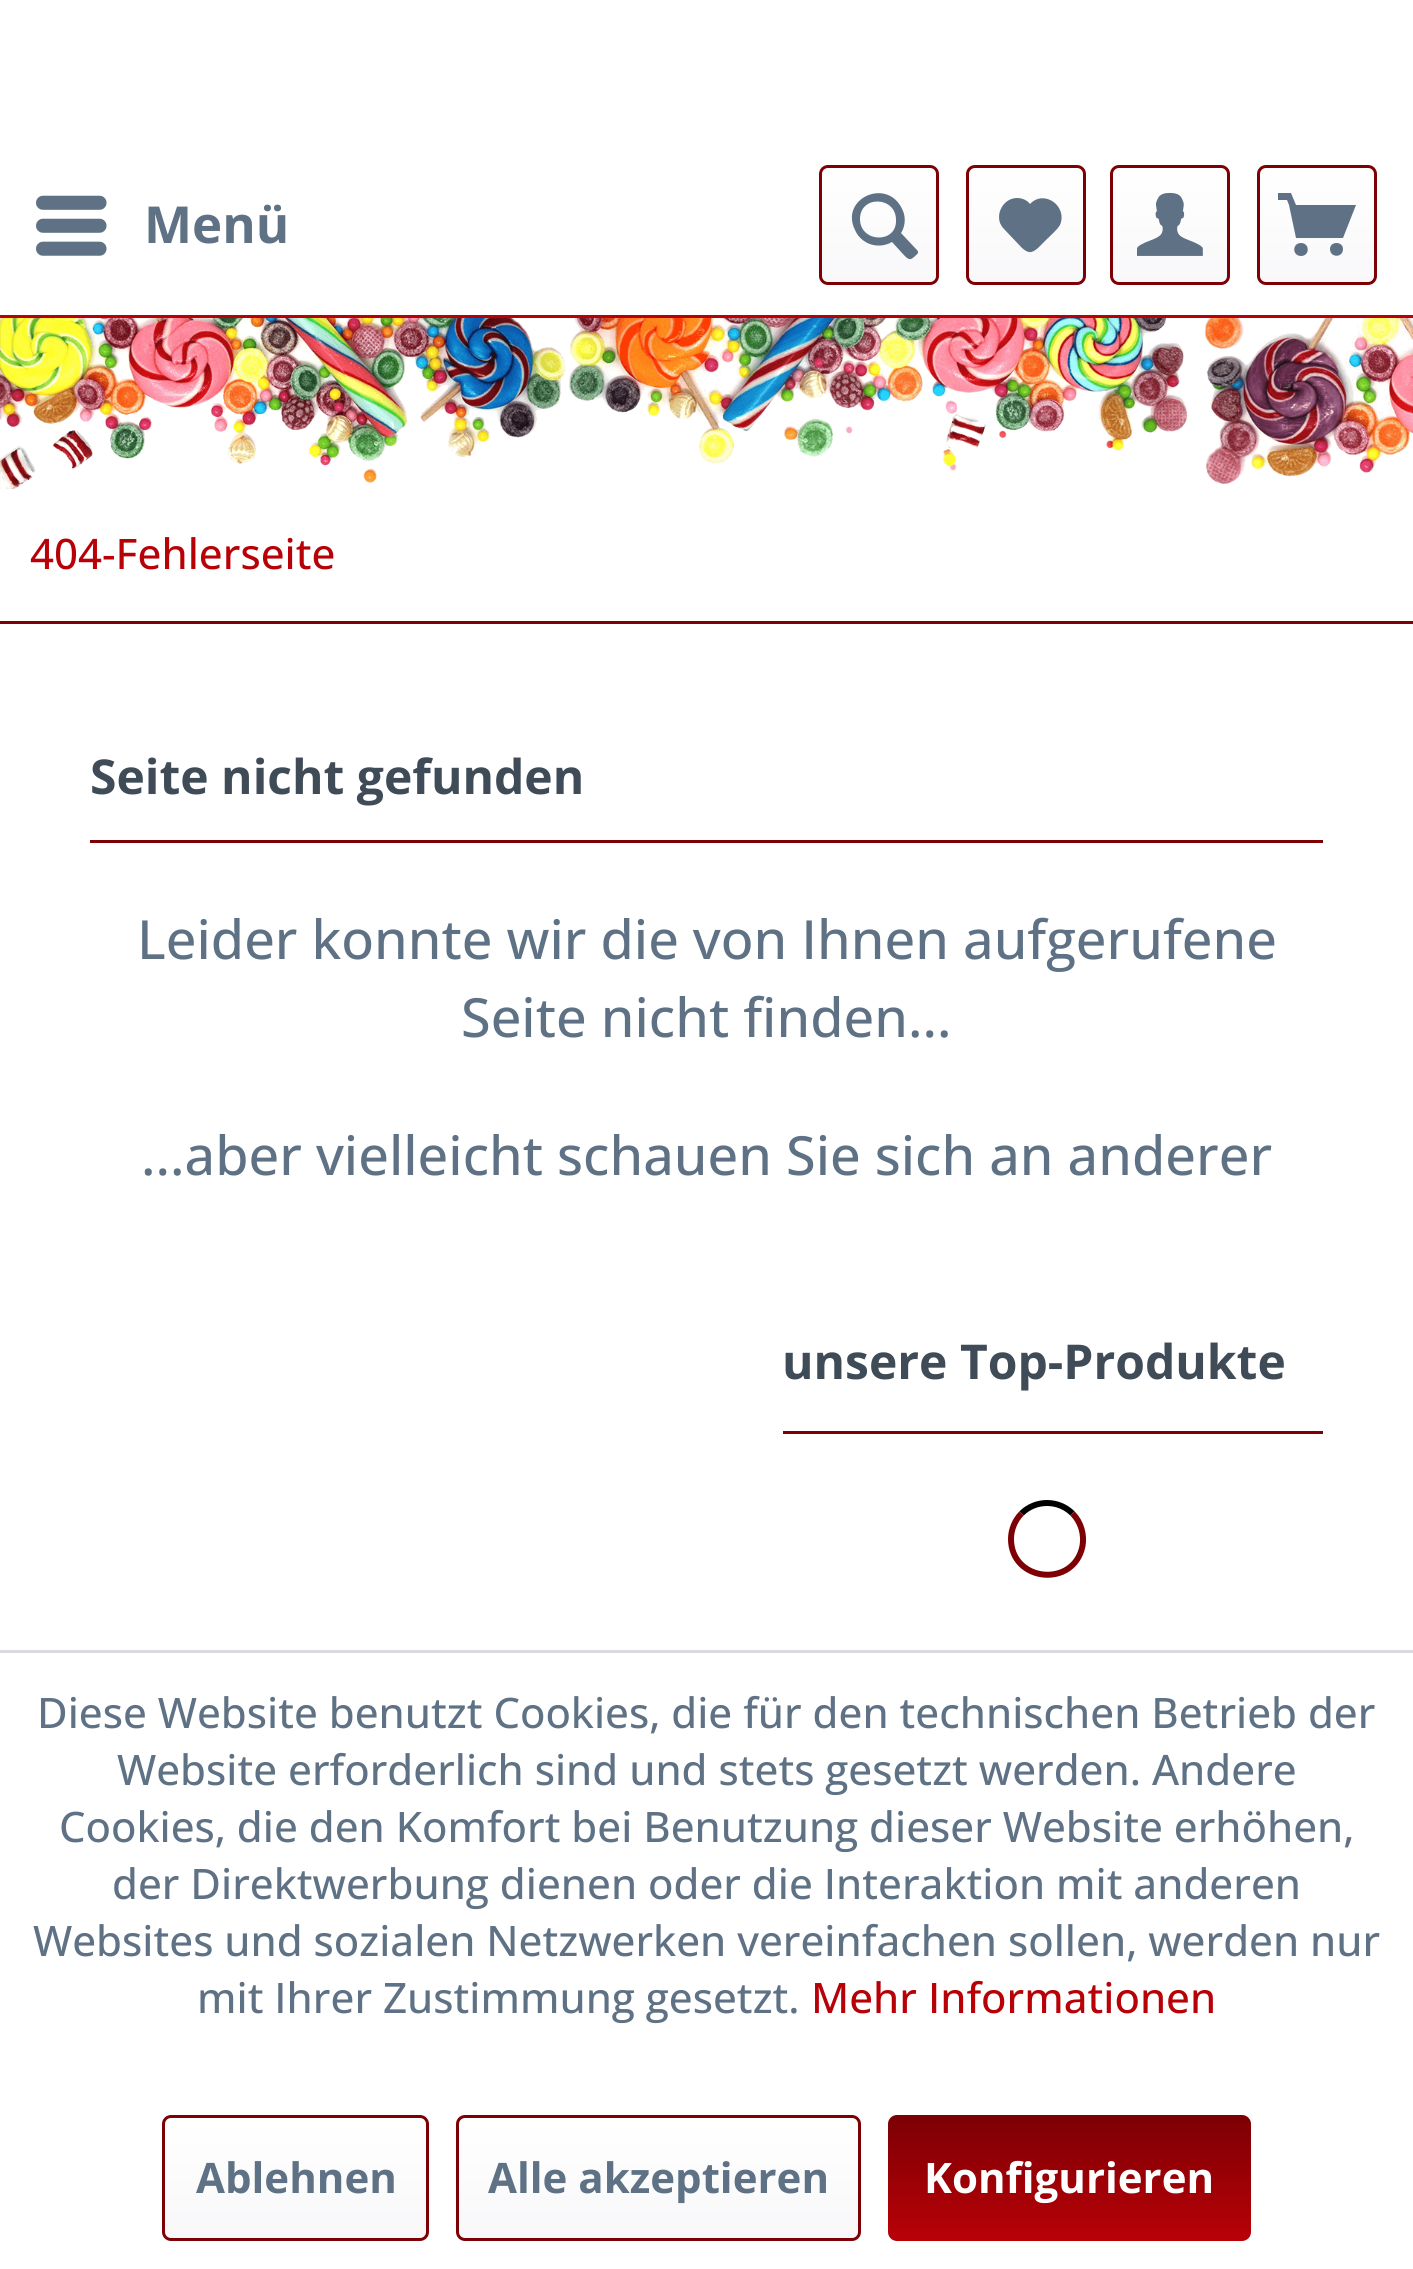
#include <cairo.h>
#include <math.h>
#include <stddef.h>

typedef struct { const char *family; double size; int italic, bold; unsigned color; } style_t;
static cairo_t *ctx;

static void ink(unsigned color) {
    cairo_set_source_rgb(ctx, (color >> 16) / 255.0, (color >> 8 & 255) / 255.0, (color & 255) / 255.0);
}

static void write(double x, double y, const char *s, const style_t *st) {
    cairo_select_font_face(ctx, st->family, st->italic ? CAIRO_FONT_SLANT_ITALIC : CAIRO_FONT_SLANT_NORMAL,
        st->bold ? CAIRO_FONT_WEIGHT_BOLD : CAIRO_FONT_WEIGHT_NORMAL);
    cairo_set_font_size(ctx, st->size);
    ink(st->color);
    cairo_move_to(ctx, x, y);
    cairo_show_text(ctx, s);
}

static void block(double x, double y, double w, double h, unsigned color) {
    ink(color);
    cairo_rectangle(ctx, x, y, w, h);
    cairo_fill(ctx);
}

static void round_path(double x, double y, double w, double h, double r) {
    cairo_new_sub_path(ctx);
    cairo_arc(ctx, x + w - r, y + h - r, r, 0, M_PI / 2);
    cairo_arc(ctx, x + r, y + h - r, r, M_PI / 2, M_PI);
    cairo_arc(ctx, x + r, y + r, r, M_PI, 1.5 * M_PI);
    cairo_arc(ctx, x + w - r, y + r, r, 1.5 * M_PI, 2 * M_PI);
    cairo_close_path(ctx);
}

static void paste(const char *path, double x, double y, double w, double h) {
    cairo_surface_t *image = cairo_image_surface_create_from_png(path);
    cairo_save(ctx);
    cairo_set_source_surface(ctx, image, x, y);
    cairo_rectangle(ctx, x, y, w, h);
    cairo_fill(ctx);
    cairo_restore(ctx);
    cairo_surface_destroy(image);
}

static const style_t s1 = {"Open Sans", 51, 0, 1, 0x5f7285};
static const style_t s2 = {"Open Sans Medium", 42, 0, 0, 0xb80107};
static const style_t s3 = {"Open Sans", 48, 0, 1, 0x3f4c58};
static const style_t s4 = {"Open Sans Medium", 54, 0, 0, 0x5f7285};
static const style_t s5 = {"Open Sans Medium", 42, 0, 0, 0x5f7285};
static const style_t s6 = {"Open Sans", 42, 0, 1, 0x5f7285};
static const style_t s7 = {"Open Sans", 42, 0, 1, 0xffffff};

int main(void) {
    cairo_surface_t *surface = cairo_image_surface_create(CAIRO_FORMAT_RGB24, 1413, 2269);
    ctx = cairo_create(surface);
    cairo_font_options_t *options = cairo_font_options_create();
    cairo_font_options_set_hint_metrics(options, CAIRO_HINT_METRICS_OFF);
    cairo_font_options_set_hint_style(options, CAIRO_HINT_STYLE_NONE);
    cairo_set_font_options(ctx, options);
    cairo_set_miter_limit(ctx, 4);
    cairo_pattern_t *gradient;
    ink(0xffffff);
    cairo_paint(ctx);
    block(0, 315, 1413, 3, 0xb80107);
    paste("pic1.png", 36, 195, 71, 61);
    write(144, 243, "Menü", &s1);
    gradient = cairo_pattern_create_linear(879, 168, 879, 282);
    cairo_pattern_add_color_stop_rgba(gradient, 0, 1, 1, 1, 1);
    cairo_pattern_add_color_stop_rgba(gradient, 1, 0.973, 0.973, 0.98, 1);
    cairo_set_source(ctx, gradient);
    cairo_pattern_destroy(gradient);
    round_path(822, 168, 114, 114, 6);
    cairo_fill(ctx);
    round_path(820.5, 166.5, 117, 117, 7.5);
    ink(0x7c0004);
    cairo_set_line_width(ctx, 3);
    cairo_stroke(ctx);
    ink(0x5f7285);
    cairo_new_path(ctx);
    cairo_move_to(ctx, 916, 249);
    cairo_line_to(ctx, 901, 233);
    cairo_curve_to(ctx, 905, 227, 906, 218, 903, 211);
    cairo_curve_to(ctx, 889, 176, 839, 198, 855, 230);
    cairo_curve_to(ctx, 861, 244, 878, 250, 892, 242);
    cairo_line_to(ctx, 902, 253);
    cairo_curve_to(ctx, 906, 257, 909, 262, 914, 257);
    cairo_curve_to(ctx, 916, 255, 920, 253, 917, 250);
    cairo_close_path(ctx);
    cairo_move_to(ctx, 860, 219);
    cairo_curve_to(ctx, 860, 195, 896, 196, 896, 220);
    cairo_curve_to(ctx, 897, 244, 860, 243, 860, 219);
    cairo_close_path(ctx);
    cairo_fill(ctx);
    gradient = cairo_pattern_create_linear(1026, 168, 1026, 282);
    cairo_pattern_add_color_stop_rgba(gradient, 0, 1, 1, 1, 1);
    cairo_pattern_add_color_stop_rgba(gradient, 1, 0.973, 0.973, 0.98, 1);
    cairo_set_source(ctx, gradient);
    cairo_pattern_destroy(gradient);
    round_path(969, 168, 114, 114, 6);
    cairo_fill(ctx);
    round_path(967.5, 166.5, 117, 117, 7.5);
    ink(0x7c0004);
    cairo_stroke(ctx);
    ink(0x5f7285);
    cairo_new_path(ctx);
    cairo_move_to(ctx, 1017, 198);
    cairo_curve_to(ctx, 1005, 198, 996, 211, 1000, 223);
    cairo_curve_to(ctx, 1001, 225, 1002, 227, 1004, 229);
    cairo_line_to(ctx, 1022, 248);
    cairo_curve_to(ctx, 1028, 253, 1031, 254, 1038, 248);
    cairo_line_to(ctx, 1047, 239);
    cairo_curve_to(ctx, 1051, 235, 1057, 230, 1060, 225);
    cairo_curve_to(ctx, 1068, 206, 1044, 189, 1030, 204);
    cairo_curve_to(ctx, 1027, 200, 1022, 198, 1017, 198);
    cairo_close_path(ctx);
    cairo_fill(ctx);
    gradient = cairo_pattern_create_linear(1170, 168, 1170, 282);
    cairo_pattern_add_color_stop_rgba(gradient, 0, 1, 1, 1, 1);
    cairo_pattern_add_color_stop_rgba(gradient, 1, 0.973, 0.973, 0.98, 1);
    cairo_set_source(ctx, gradient);
    cairo_pattern_destroy(gradient);
    round_path(1113, 168, 114, 114, 6);
    cairo_fill(ctx);
    round_path(1111.5, 166.5, 117, 117, 7.5);
    ink(0x7c0004);
    cairo_stroke(ctx);
    paste("pic2.png", 1137, 192, 66, 64);
    gradient = cairo_pattern_create_linear(1317, 168, 1317, 282);
    cairo_pattern_add_color_stop_rgba(gradient, 0, 1, 1, 1, 1);
    cairo_pattern_add_color_stop_rgba(gradient, 1, 0.973, 0.973, 0.98, 1);
    cairo_set_source(ctx, gradient);
    cairo_pattern_destroy(gradient);
    round_path(1260, 168, 114, 114, 6);
    cairo_fill(ctx);
    round_path(1258.5, 166.5, 117, 117, 7.5);
    ink(0x7c0004);
    cairo_stroke(ctx);
    ink(0x5f7285);
    cairo_new_path(ctx);
    cairo_move_to(ctx, 1296, 238);
    cairo_line_to(ctx, 1343, 238);
    cairo_line_to(ctx, 1356, 205);
    cairo_line_to(ctx, 1296, 205);
    cairo_line_to(ctx, 1291, 193);
    cairo_line_to(ctx, 1278, 193);
    cairo_line_to(ctx, 1278, 200);
    cairo_line_to(ctx, 1287, 200);
    cairo_line_to(ctx, 1289, 205);
    cairo_close_path(ctx);
    cairo_move_to(ctx, 1301, 243);
    cairo_curve_to(ctx, 1292, 243, 1292, 256, 1301, 256);
    cairo_curve_to(ctx, 1310, 256, 1310, 243, 1301, 243);
    cairo_close_path(ctx);
    cairo_move_to(ctx, 1343, 249);
    cairo_curve_to(ctx, 1343, 258, 1330, 258, 1330, 249);
    cairo_curve_to(ctx, 1330, 241, 1343, 241, 1343, 249);
    cairo_close_path(ctx);
    cairo_fill(ctx);
    paste("pic3.png", 0, 318, 1413, 171);
    block(0, 621, 1413, 3, 0x7c0004);
    write(30, 569, "404-Fehlerseite", &s2);
    block(90, 840, 1233, 3, 0x7c0004);
    write(90, 794, "Seite nicht gefunden", &s3);
    write(137, 959, "Leider konnte wir die von Ihnen aufgerufene", &s4);
    write(461, 1037, "Seite nicht finden...", &s4);
    write(141, 1175, "...aber vielleicht schauen Sie sich an anderer", &s4);
    block(783, 1431, 540, 3, 0x7c0004);
    write(782, 1379, "unsere Top-Produkte", &s3);
    cairo_new_path(ctx);
    cairo_move_to(ctx, 1021.5, 1513.5);
    cairo_curve_to(ctx, 1035.5, 1499.5, 1058.5, 1499.5, 1072.5, 1513.5);
    ink(0x000000);
    cairo_set_line_width(ctx, 6);
    cairo_stroke(ctx);
    cairo_new_path(ctx);
    cairo_move_to(ctx, 1072.5, 1513.5);
    cairo_curve_to(ctx, 1081, 1522, 1084.5, 1534.5, 1082.5, 1546);
    cairo_curve_to(ctx, 1074, 1588.5, 1011, 1582, 1011, 1539);
    cairo_curve_to(ctx, 1011, 1529.5, 1015, 1520, 1021.5, 1513.5);
    ink(0x7c0004);
    cairo_stroke(ctx);
    block(0, 1650, 1413, 3, 0xdadae5);
    write(37, 1728, "Diese Website benutzt Cookies, die für den technischen Betrieb der", &s5);
    write(117, 1785, "Website erforderlich sind und stets gesetzt werden. Andere", &s5);
    write(59, 1842, "Cookies, die den Komfort bei Benutzung dieser Website erhöhen,", &s5);
    write(112, 1899, "der Direktwerbung dienen oder die Interaktion mit anderen", &s5);
    write(33, 1956, "Websites und sozialen Netzwerken vereinfachen sollen, werden nur", &s5);
    write(197, 2013, "mit Ihrer Zustimmung gesetzt.", &s5);
    write(811, 2013, "Mehr Informationen", &s2);
    gradient = cairo_pattern_create_linear(296, 2118, 296, 2238);
    cairo_pattern_add_color_stop_rgba(gradient, 0, 1, 1, 1, 1);
    cairo_pattern_add_color_stop_rgba(gradient, 1, 0.973, 0.973, 0.98, 1);
    cairo_set_source(ctx, gradient);
    cairo_pattern_destroy(gradient);
    round_path(165, 2118, 261, 120, 6);
    cairo_fill(ctx);
    round_path(163.5, 2116.5, 264, 123, 7.5);
    ink(0x7c0004);
    cairo_set_line_width(ctx, 3);
    cairo_stroke(ctx);
    write(196, 2193, "Ablehnen", &s6);
    gradient = cairo_pattern_create_linear(659, 2118, 659, 2238);
    cairo_pattern_add_color_stop_rgba(gradient, 0, 1, 1, 1, 1);
    cairo_pattern_add_color_stop_rgba(gradient, 1, 0.973, 0.973, 0.98, 1);
    cairo_set_source(ctx, gradient);
    cairo_pattern_destroy(gradient);
    round_path(459, 2118, 399, 120, 6);
    cairo_fill(ctx);
    round_path(457.5, 2116.5, 402, 123, 7.5);
    ink(0x7c0004);
    cairo_stroke(ctx);
    write(488, 2193, "Alle akzeptieren", &s6);
    gradient = cairo_pattern_create_linear(1070, 2115, 1070, 2241);
    cairo_pattern_add_color_stop_rgba(gradient, 0, 0.486, 0, 0.016, 1);
    cairo_pattern_add_color_stop_rgba(gradient, 1, 0.722, 0.004, 0.027, 1);
    cairo_set_source(ctx, gradient);
    cairo_pattern_destroy(gradient);
    round_path(888, 2115, 363, 126, 9);
    cairo_fill(ctx);
    write(924, 2193, "Konfigurieren", &s7);
    cairo_surface_write_to_png(surface, "screenshot.png");
    cairo_font_options_destroy(options);
    cairo_destroy(ctx);
    cairo_surface_destroy(surface);
    return 0;
}
